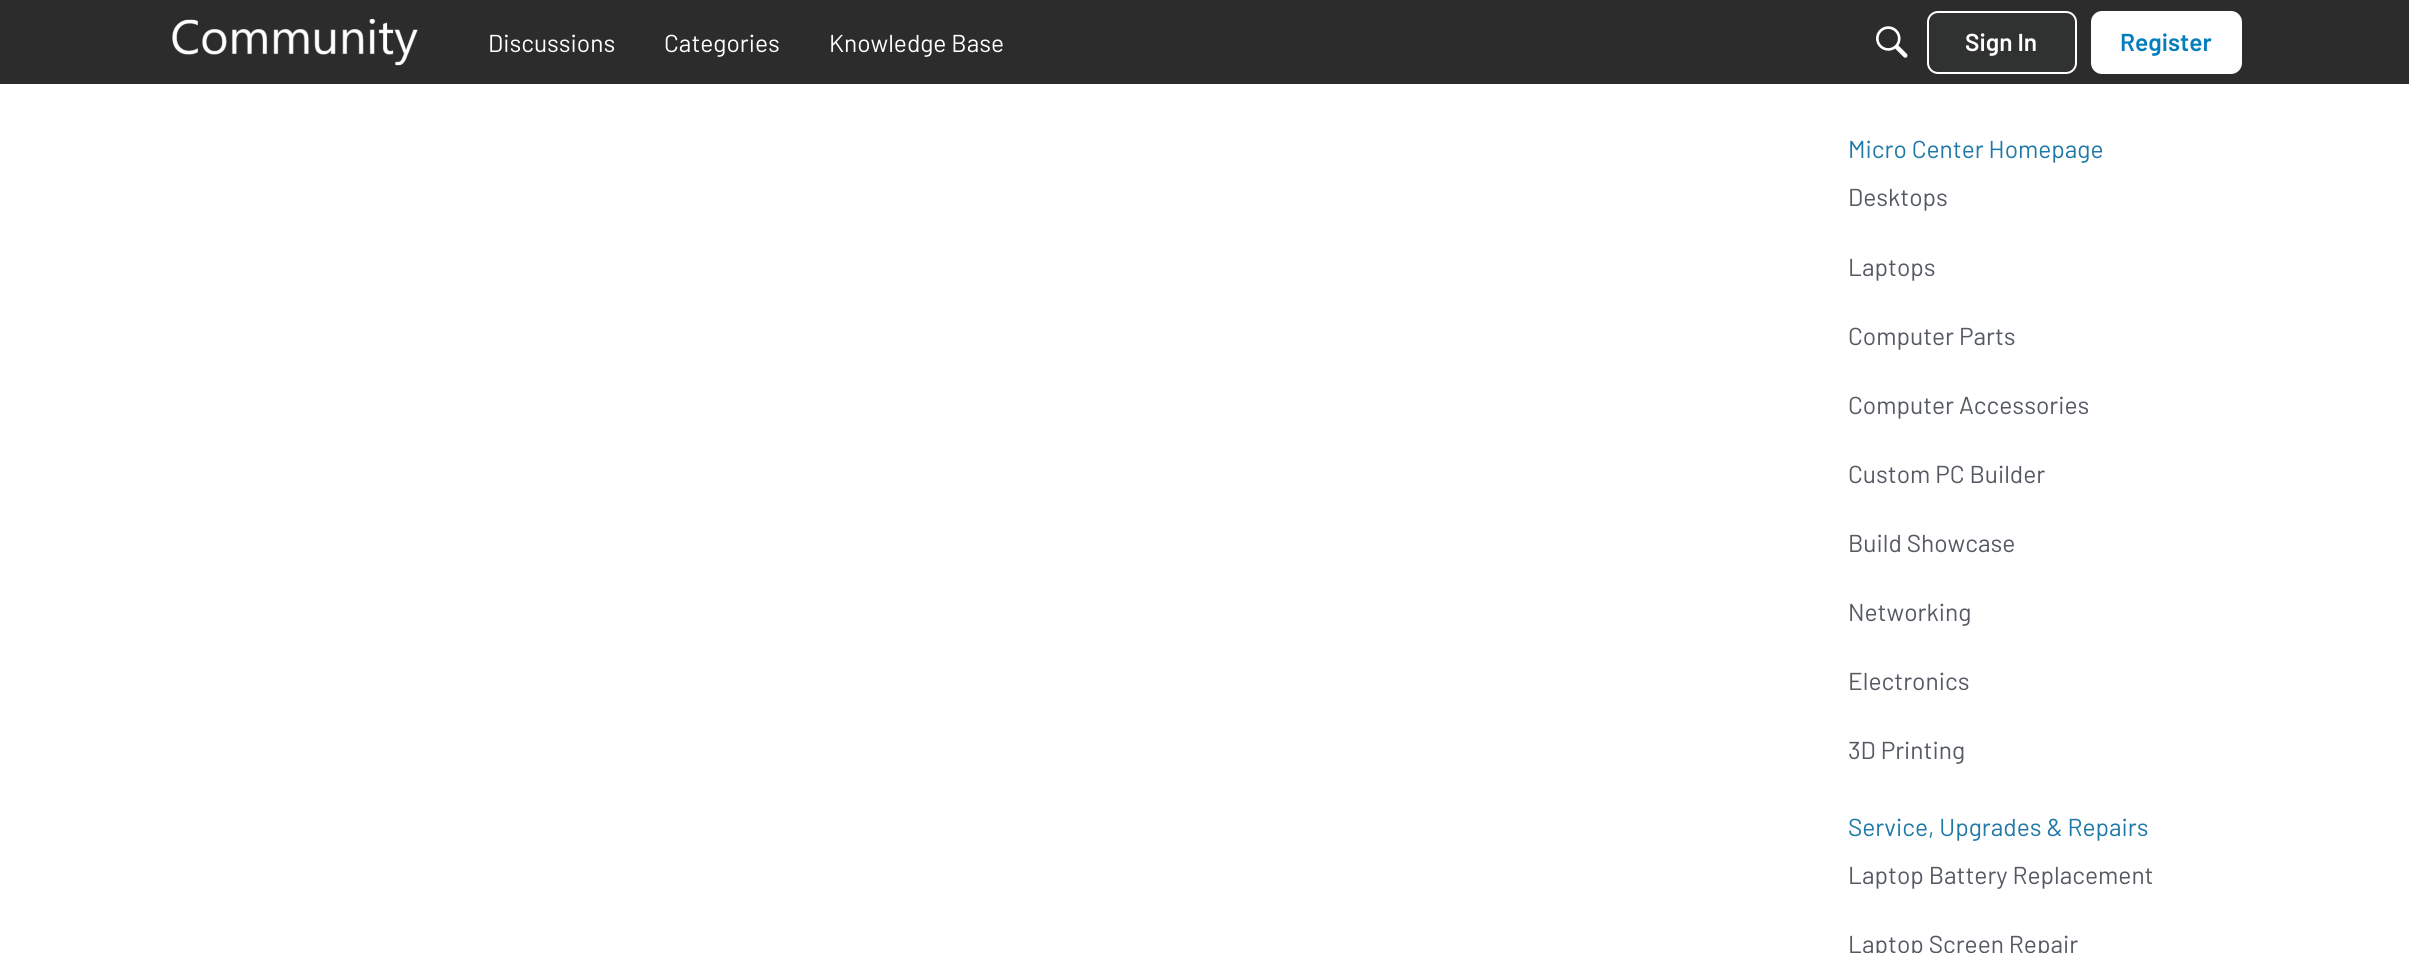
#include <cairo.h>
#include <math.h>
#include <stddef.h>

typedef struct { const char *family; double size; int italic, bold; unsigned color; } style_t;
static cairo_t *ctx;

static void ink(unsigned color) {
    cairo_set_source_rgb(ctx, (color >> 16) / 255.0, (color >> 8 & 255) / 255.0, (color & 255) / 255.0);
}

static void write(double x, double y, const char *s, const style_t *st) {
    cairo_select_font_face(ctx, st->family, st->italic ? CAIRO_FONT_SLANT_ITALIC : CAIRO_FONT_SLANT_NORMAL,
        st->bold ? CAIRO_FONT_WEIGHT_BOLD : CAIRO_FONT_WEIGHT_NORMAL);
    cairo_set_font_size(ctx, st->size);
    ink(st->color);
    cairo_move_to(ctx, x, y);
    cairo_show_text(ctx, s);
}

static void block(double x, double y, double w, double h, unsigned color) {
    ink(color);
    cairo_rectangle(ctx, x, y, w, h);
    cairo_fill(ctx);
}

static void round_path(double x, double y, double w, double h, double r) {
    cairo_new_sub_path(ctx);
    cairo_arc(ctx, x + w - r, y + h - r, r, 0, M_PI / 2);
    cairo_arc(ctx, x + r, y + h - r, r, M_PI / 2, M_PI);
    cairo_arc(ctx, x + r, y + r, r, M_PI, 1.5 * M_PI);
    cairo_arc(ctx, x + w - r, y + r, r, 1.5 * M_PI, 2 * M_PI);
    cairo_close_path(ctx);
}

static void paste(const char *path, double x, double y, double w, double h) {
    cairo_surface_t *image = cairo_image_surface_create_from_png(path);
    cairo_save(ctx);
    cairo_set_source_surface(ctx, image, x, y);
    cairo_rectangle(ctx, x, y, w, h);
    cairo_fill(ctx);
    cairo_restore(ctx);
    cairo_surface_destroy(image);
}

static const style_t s1 = {"Barlow", 24.5, 0, 0, 0xffffff};
static const style_t s2 = {"Barlow SemiBold", 24.5, 0, 0, 0xffffff};
static const style_t s3 = {"Barlow SemiBold", 24.5, 0, 0, 0x037dbc};
static const style_t s4 = {"Barlow", 24.5, 0, 0, 0x1e79a7};
static const style_t s5 = {"Barlow", 24.5, 0, 0, 0x555a62};

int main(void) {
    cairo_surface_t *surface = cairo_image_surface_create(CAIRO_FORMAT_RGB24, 2409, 953);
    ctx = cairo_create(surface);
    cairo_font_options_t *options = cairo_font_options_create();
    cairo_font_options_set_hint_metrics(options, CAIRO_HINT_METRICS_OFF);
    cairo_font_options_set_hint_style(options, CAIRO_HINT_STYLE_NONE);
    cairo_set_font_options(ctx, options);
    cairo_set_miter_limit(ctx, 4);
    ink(0xffffff);
    cairo_paint(ctx);
    block(0, 0, 2409, 84, 0x2c2c2c);
    paste("pic1.png", 172, 19, 246, 47);
    write(488, 52, "Discussions", &s1);
    write(664, 52, "Categories", &s1);
    write(829, 52, "Knowledge Base", &s1);
    paste("pic2.png", 1876, 26, 32, 32);
    ink(0x303131);
    round_path(1928, 12, 148, 61, 10);
    cairo_fill_preserve(ctx);
    ink(0xffffff);
    cairo_stroke(ctx);
    write(1965, 51, "Sign In", &s2);
    round_path(2092, 12, 149, 61, 10);
    cairo_fill_preserve(ctx);
    cairo_stroke(ctx);
    write(2120, 51, "Register", &s3);
    write(1848, 158, "Micro Center Homepage", &s4);
    write(1848, 206, "Desktops", &s5);
    write(1848, 276, "Laptops", &s5);
    write(1848, 345, "Computer Parts", &s5);
    write(1848, 414, "Computer Accessories", &s5);
    write(1848, 483, "Custom PC Builder", &s5);
    write(1848, 552, "Build Showcase", &s5);
    write(1848, 621, "Networking", &s5);
    write(1848, 690, "Electronics", &s5);
    write(1848, 759, "3D Printing", &s5);
    write(1848, 836, "Service, Upgrades & Repairs", &s4);
    write(1848, 884, "Laptop Battery Replacement", &s5);
    write(1848, 953, "Laptop Screen Repair", &s5);
    cairo_surface_write_to_png(surface, "screenshot.png");
    cairo_font_options_destroy(options);
    cairo_destroy(ctx);
    cairo_surface_destroy(surface);
    return 0;
}
